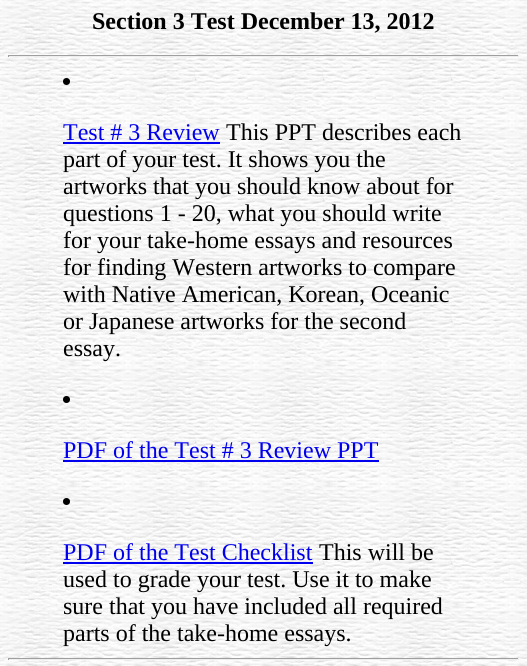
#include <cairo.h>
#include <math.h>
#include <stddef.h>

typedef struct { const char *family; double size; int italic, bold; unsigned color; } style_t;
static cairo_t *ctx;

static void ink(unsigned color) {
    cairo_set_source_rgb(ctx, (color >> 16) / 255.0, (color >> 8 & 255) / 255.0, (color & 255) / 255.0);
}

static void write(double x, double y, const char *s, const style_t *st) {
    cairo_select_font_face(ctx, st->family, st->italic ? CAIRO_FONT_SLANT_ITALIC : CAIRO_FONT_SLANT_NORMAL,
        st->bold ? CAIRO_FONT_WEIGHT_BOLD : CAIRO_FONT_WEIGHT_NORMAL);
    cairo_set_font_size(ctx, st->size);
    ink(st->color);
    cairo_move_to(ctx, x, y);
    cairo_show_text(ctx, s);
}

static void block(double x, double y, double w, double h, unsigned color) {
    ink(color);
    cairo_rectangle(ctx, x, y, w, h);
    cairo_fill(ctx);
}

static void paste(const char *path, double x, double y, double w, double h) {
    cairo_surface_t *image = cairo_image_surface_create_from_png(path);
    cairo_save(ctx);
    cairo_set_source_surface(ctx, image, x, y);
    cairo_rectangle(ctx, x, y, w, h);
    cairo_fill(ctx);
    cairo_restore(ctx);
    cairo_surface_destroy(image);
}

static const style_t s1 = {"Liberation Serif", 24, 0, 1, 0x000000};
static const style_t s2 = {"Liberation Serif", 24, 0, 0, 0x0000ee};
static const style_t s3 = {"Liberation Serif", 24, 0, 0, 0x000000};

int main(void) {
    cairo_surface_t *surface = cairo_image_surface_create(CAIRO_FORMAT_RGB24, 527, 666);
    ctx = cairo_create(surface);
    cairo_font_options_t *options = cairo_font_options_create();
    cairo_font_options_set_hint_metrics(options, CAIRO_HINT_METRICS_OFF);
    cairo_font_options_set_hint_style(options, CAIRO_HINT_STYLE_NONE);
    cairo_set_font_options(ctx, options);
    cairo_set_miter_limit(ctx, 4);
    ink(0xffffff);
    cairo_paint(ctx);
    paste("pic1.png", 0, 0, 527, 666);
    write(92, 29, "Section 3 Test December 13, 2012", &s1);
    block(8, 55, 511, 1, 0x9f9f9f);
    block(518, 55, 1, 2, 0xeeeeee);
    block(8, 56, 511, 1, 0xeeeeee);
    block(8, 55, 1, 2, 0x9f9f9f);
    ink(0x000000);
    cairo_new_path(ctx);
    cairo_arc(ctx, 66.5, 81.5, 3.5, 0, 2 * M_PI);
    cairo_fill(ctx);
    write(63, 140, "Test # 3 Review", &s2);
    block(63, 142, 157, 2, 0x0000ee);
    write(226, 140, "This PPT describes each", &s3);
    write(63, 167, "part of your test. It shows you the", &s3);
    write(63, 194, "artworks that you should know about for", &s3);
    write(63, 221, "questions 1 - 20, what you should write", &s3);
    write(63, 248, "for your take-home essays and resources", &s3);
    write(63, 275, "for finding Western artworks to compare", &s3);
    write(63, 302, "with Native American, Korean, Oceanic", &s3);
    write(63, 329, "or Japanese artworks for the second", &s3);
    write(63, 356, "essay.", &s3);
    cairo_new_path(ctx);
    cairo_arc(ctx, 66.5, 399.5, 3.5, 0, 2 * M_PI);
    cairo_fill(ctx);
    write(63, 458, "PDF of the Test # 3 Review PPT", &s2);
    block(63, 460, 316, 2, 0x0000ee);
    ink(0x000000);
    cairo_new_path(ctx);
    cairo_arc(ctx, 66.5, 501.5, 3.5, 0, 2 * M_PI);
    cairo_fill(ctx);
    write(63, 560, "PDF of the Test Checklist", &s2);
    block(63, 562, 250, 2, 0x0000ee);
    write(319, 560, "This will be", &s3);
    write(63, 587, "used to grade your test. Use it to make", &s3);
    write(63, 614, "sure that you have included all required", &s3);
    write(63, 641, "parts of the take-home essays.", &s3);
    block(8, 658, 511, 1, 0x9f9f9f);
    block(518, 658, 1, 2, 0xeeeeee);
    block(8, 659, 511, 1, 0xeeeeee);
    block(8, 658, 1, 2, 0x9f9f9f);
    cairo_surface_write_to_png(surface, "screenshot.png");
    cairo_font_options_destroy(options);
    cairo_destroy(ctx);
    cairo_surface_destroy(surface);
    return 0;
}
